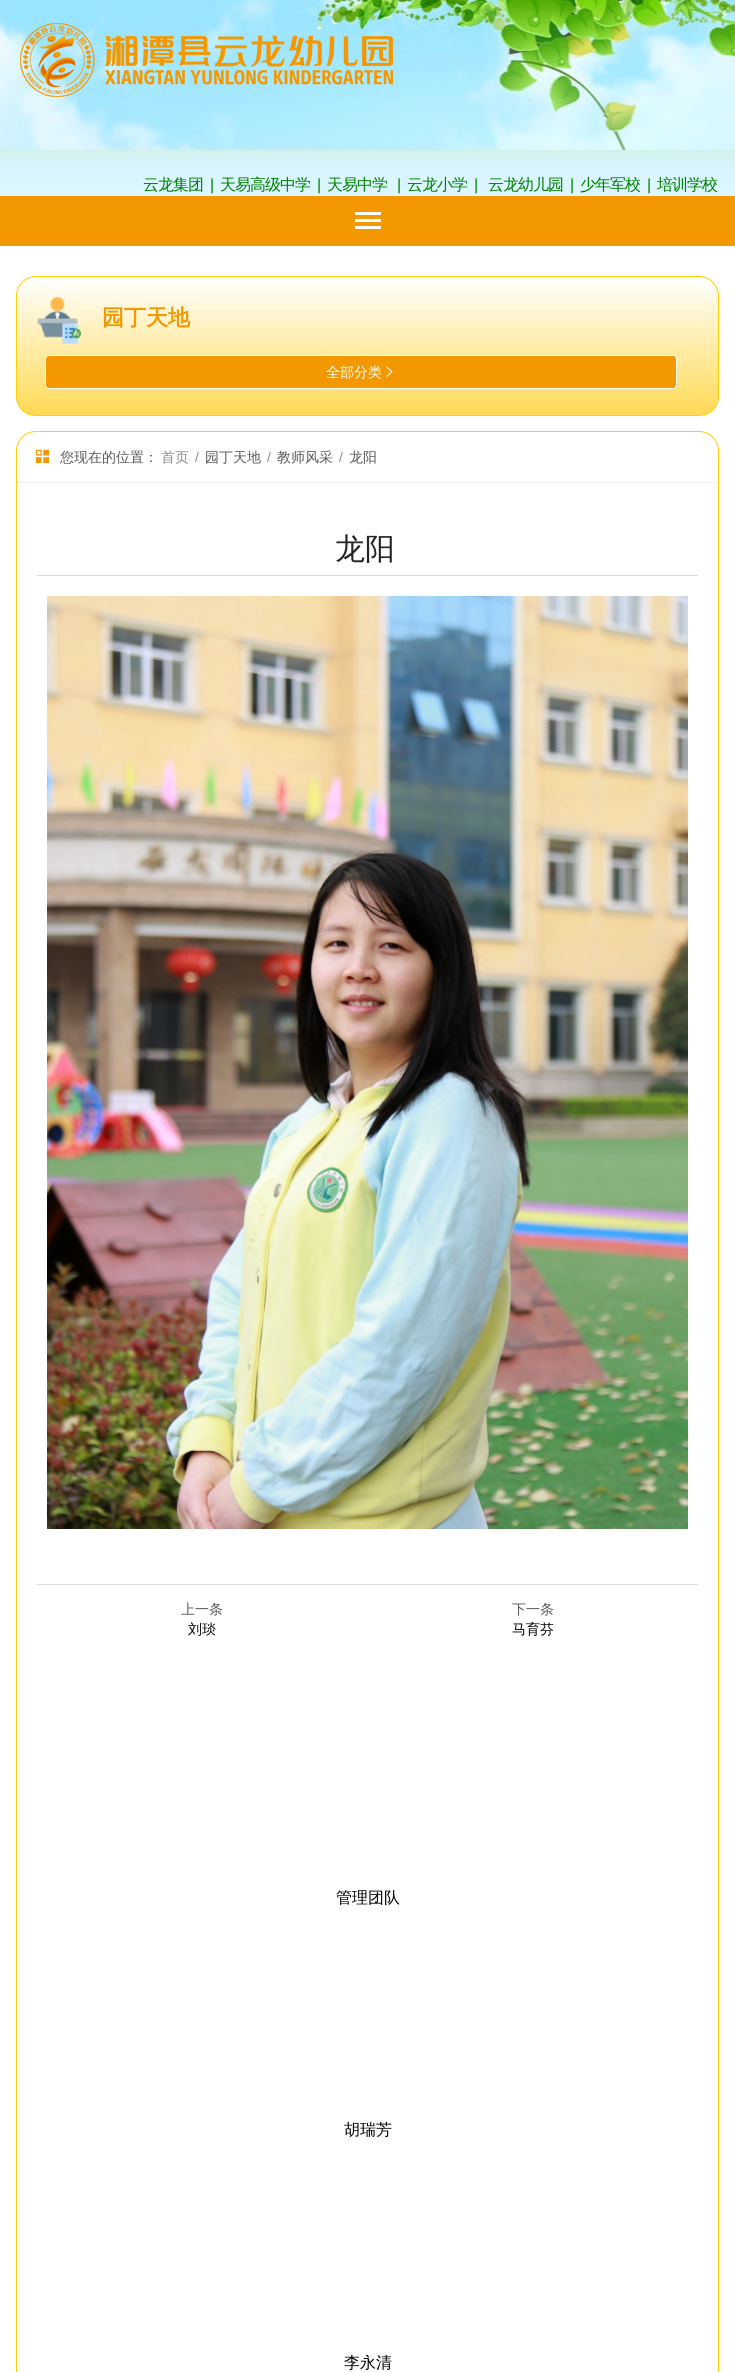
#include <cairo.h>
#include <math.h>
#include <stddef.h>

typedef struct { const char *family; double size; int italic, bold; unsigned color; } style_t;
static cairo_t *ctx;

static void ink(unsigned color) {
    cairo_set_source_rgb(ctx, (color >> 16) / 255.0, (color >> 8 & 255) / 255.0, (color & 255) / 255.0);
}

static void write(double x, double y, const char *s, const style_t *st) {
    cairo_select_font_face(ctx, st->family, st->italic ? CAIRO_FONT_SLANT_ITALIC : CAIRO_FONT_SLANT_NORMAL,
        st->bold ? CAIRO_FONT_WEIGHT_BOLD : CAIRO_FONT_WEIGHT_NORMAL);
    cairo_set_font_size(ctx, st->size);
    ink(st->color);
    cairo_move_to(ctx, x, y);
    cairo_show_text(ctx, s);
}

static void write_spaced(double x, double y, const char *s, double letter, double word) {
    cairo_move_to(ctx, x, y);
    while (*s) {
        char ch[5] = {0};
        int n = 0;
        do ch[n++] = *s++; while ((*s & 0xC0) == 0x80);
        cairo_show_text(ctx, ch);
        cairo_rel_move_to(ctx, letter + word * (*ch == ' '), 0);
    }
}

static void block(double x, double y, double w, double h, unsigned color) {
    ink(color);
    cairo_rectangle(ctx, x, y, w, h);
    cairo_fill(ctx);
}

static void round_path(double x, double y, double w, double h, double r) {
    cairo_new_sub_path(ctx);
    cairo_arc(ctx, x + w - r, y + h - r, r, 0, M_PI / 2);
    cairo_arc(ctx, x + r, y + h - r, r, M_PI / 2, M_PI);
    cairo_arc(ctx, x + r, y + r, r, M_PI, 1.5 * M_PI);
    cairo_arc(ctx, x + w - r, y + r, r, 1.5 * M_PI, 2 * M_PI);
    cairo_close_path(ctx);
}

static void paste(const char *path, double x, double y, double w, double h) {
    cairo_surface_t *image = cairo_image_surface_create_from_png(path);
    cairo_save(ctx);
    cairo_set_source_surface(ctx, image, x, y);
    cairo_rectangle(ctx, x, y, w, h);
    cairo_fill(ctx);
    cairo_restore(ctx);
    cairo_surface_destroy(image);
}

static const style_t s1 = {"WenQuanYi Zen Hei", 22, 0, 1, 0xf39800};
static const style_t s2 = {"WenQuanYi Zen Hei Medium", 14, 0, 0, 0xffffff};
static const style_t s3 = {"WenQuanYi Zen Hei Medium", 14, 0, 0, 0x595959};
static const style_t s4 = {"WenQuanYi Zen Hei Medium", 14, 0, 0, 0x8c8c8c};
static const style_t s5 = {"Liberation Sans", 14, 0, 0, 0x8c8c8c};
static const style_t s6 = {"WenQuanYi Zen Hei Medium", 30, 0, 0, 0x262626};
static const style_t s7 = {"WenQuanYi Zen Hei Medium", 14, 0, 0, 0x000000};
static const style_t s8 = {"WenQuanYi Zen Hei Medium", 16, 0, 0, 0x000000};

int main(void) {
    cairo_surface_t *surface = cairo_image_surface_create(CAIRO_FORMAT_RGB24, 735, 2372);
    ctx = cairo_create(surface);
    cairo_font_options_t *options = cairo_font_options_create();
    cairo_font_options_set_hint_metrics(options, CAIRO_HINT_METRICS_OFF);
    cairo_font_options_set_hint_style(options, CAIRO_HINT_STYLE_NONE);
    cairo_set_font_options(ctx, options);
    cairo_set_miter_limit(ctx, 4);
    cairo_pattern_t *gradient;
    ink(0xffffff);
    cairo_paint(ctx);
    paste("pic1.png", 0, 0, 735, 150);
    paste("pic2.png", 20, 23, 373, 74);
    paste("pic3.png", 0, 150, 735, 46);
    cairo_select_font_face(ctx, "WenQuanYi Zen Hei Medium", CAIRO_FONT_SLANT_NORMAL, CAIRO_FONT_WEIGHT_NORMAL);
    cairo_set_font_size(ctx, 16);
    ink(0x008000);
    write_spaced(143, 190, "云龙集团", -1, 0);
    cairo_select_font_face(ctx, "Liberation Sans", CAIRO_FONT_SLANT_NORMAL, CAIRO_FONT_WEIGHT_NORMAL);
    write_spaced(210, 190, "|", -1, 0);
    cairo_select_font_face(ctx, "WenQuanYi Zen Hei Medium", CAIRO_FONT_SLANT_NORMAL, CAIRO_FONT_WEIGHT_NORMAL);
    write_spaced(220, 190, "天易高级中学", -1, 0);
    cairo_select_font_face(ctx, "Liberation Sans", CAIRO_FONT_SLANT_NORMAL, CAIRO_FONT_WEIGHT_NORMAL);
    write_spaced(317, 190, "|", -1, 0);
    cairo_select_font_face(ctx, "WenQuanYi Zen Hei Medium", CAIRO_FONT_SLANT_NORMAL, CAIRO_FONT_WEIGHT_NORMAL);
    write_spaced(327, 190, "天易中学", -1, 0);
    cairo_select_font_face(ctx, "Liberation Sans", CAIRO_FONT_SLANT_NORMAL, CAIRO_FONT_WEIGHT_NORMAL);
    write_spaced(397, 190, "|", -1, 0);
    cairo_select_font_face(ctx, "WenQuanYi Zen Hei Medium", CAIRO_FONT_SLANT_NORMAL, CAIRO_FONT_WEIGHT_NORMAL);
    write_spaced(407, 190, "云龙小学", -1, 0);
    cairo_select_font_face(ctx, "Liberation Sans", CAIRO_FONT_SLANT_NORMAL, CAIRO_FONT_WEIGHT_NORMAL);
    write_spaced(474, 190, "|", -1, 0);
    cairo_select_font_face(ctx, "WenQuanYi Zen Hei Medium", CAIRO_FONT_SLANT_NORMAL, CAIRO_FONT_WEIGHT_NORMAL);
    write_spaced(488, 190, "云龙幼儿园", -1, 0);
    cairo_select_font_face(ctx, "Liberation Sans", CAIRO_FONT_SLANT_NORMAL, CAIRO_FONT_WEIGHT_NORMAL);
    write_spaced(570, 190, "|", -1, 0);
    cairo_select_font_face(ctx, "WenQuanYi Zen Hei Medium", CAIRO_FONT_SLANT_NORMAL, CAIRO_FONT_WEIGHT_NORMAL);
    write_spaced(580, 190, "少年军校", -1, 0);
    cairo_select_font_face(ctx, "Liberation Sans", CAIRO_FONT_SLANT_NORMAL, CAIRO_FONT_WEIGHT_NORMAL);
    write_spaced(647, 190, "|", -1, 0);
    cairo_select_font_face(ctx, "WenQuanYi Zen Hei Medium", CAIRO_FONT_SLANT_NORMAL, CAIRO_FONT_WEIGHT_NORMAL);
    write_spaced(657, 190, "培训学校", -1, 0);
    block(0, 196, 735, 50, 0xf39801);
    block(355, 219, 26, 3, 0xffffff);
    block(355, 212, 26, 3, 0xffffff);
    block(355, 226, 26, 3, 0xffffff);
    cairo_save(ctx);
    round_path(16, 276, 703, 140, 20);
    cairo_clip(ctx);
    gradient = cairo_pattern_create_linear(368, 277, 368, 415);
    cairo_pattern_add_color_stop_rgba(gradient, 0, 1, 1, 1, 1);
    cairo_pattern_add_color_stop_rgba(gradient, 1, 1, 0.855, 0.333, 1);
    cairo_set_source(ctx, gradient);
    cairo_pattern_destroy(gradient);
    cairo_rectangle(ctx, 16, 277, 703, 138);
    cairo_fill(ctx);
    cairo_restore(ctx);
    round_path(16.5, 276.5, 702, 139, 19.5);
    ink(0xffd003);
    cairo_set_line_width(ctx, 1);
    cairo_stroke(ctx);
    paste("pic4.png", 37, 297, 44, 47);
    write(102, 325, "园丁天地", &s1);
    ink(0xf39801);
    round_path(45.5, 355.5, 631, 33, 3.5);
    cairo_fill_preserve(ctx);
    ink(0xffffff);
    cairo_stroke(ctx);
    write(326, 377, "全部分类", &s2);
    paste("pic5.png", 386, 366, 7, 11);
    round_path(16.5, 431.5, 702, 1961, 19.5);
    ink(0xffd003);
    cairo_stroke(ctx);
    paste("pic6.png", 35, 449, 15, 14);
    write(60, 462, "您现在的位置：", &s3);
    write(161, 462, "首页", &s4);
    write(195, 462, "/", &s5);
    write(205, 462, "园丁天地", &s3);
    write(267, 462, "/", &s5);
    write(277, 462, "教师风采", &s3);
    write(339, 462, "/", &s5);
    write(349, 462, "龙阳", &s3);
    block(17, 482, 701, 1, 0xf0f0f0);
    block(37, 575, 661, 1, 0xd9d9d9);
    write(335, 559, "龙阳", &s6);
    paste("pic7.png", 47, 596, 641, 933);
    block(37, 1584, 661, 1, 0xdddddd);
    write(181, 1614, "上一条", &s3);
    write(188, 1634, "刘琰", &s7);
    write(512, 1614, "下一条", &s3);
    write(512, 1634, "马育芬", &s7);
    write(336, 1903, "管理团队", &s8);
    write(344, 2135, "胡瑞芳", &s8);
    write(344, 2368, "李永清", &s8);
    cairo_surface_write_to_png(surface, "screenshot.png");
    cairo_font_options_destroy(options);
    cairo_destroy(ctx);
    cairo_surface_destroy(surface);
    return 0;
}
